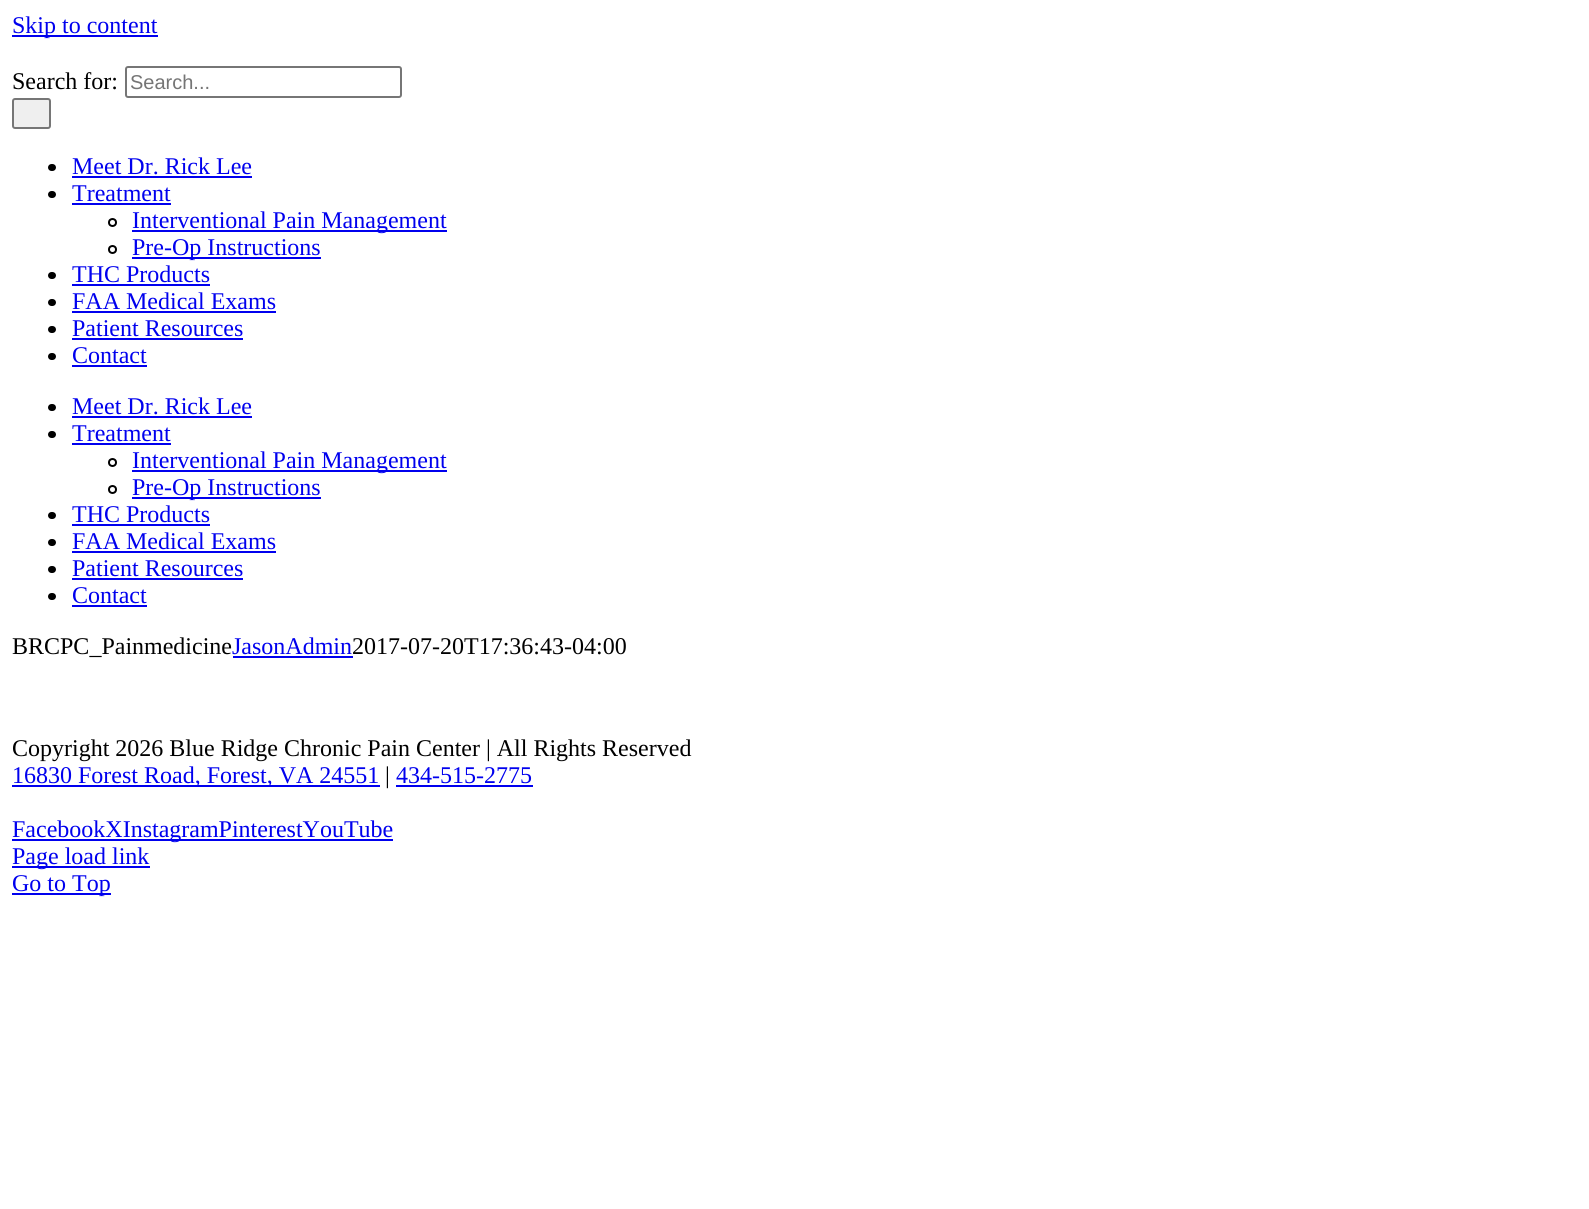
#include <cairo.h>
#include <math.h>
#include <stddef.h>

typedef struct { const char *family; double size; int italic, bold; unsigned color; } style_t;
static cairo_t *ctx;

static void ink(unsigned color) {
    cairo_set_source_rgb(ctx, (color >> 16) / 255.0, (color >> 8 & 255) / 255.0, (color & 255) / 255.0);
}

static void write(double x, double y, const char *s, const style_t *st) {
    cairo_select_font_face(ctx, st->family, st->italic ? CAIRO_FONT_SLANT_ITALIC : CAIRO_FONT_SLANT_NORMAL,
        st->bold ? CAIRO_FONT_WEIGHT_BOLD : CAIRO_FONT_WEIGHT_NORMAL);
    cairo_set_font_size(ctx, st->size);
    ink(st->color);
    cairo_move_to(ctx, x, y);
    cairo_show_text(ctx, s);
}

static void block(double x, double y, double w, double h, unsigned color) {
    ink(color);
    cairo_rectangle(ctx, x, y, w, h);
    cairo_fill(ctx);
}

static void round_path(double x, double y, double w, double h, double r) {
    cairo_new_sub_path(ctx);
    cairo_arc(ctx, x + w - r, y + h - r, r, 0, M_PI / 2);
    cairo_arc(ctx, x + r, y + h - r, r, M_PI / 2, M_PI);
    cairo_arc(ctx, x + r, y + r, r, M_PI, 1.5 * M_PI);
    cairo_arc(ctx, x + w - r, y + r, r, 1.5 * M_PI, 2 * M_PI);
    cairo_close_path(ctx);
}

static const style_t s1 = {"Liberation Serif", 24, 0, 0, 0x0000ee};
static const style_t s2 = {"Liberation Serif", 24, 0, 0, 0x000000};
static const style_t s3 = {"Liberation Sans", 20, 0, 0, 0x757575};

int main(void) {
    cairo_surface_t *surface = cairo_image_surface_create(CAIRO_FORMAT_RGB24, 1589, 1209);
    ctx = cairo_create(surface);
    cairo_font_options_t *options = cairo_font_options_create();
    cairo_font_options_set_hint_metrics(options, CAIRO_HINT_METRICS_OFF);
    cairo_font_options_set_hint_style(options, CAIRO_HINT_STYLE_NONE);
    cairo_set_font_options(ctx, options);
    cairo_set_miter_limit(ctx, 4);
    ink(0xffffff);
    cairo_paint(ctx);
    block(12, 35, 146, 2, 0x0000ee);
    write(12, 33, "Skip to content", &s1);
    write(12, 89, "Search for:", &s2);
    round_path(126, 67, 275, 30, 2);
    ink(0x767676);
    cairo_stroke(ctx);
    write(130, 89, "Search...", &s3);
    ink(0xefefef);
    round_path(13, 99, 37, 29, 2);
    cairo_fill_preserve(ctx);
    ink(0x767676);
    cairo_stroke(ctx);
    ink(0x000000);
    round_path(48, 164, 8, 7, 3.5);
    cairo_fill(ctx);
    write(72, 174, "Meet Dr. Rick Lee", &s1);
    block(72, 176, 180, 2, 0x0000ee);
    ink(0x000000);
    round_path(48, 191, 8, 7, 3.5);
    cairo_fill(ctx);
    write(72, 201, "Treatment", &s1);
    block(72, 203, 99, 2, 0x0000ee);
    cairo_new_path(ctx);
    cairo_arc(ctx, 112.5, 222.5, 3.5, 0, 2 * M_PI);
    ink(0x000000);
    cairo_stroke(ctx);
    block(132, 230, 315, 2, 0x0000ee);
    write(132, 228, "Interventional Pain Management", &s1);
    cairo_new_path(ctx);
    cairo_arc(ctx, 112.5, 249.5, 3.5, 0, 2 * M_PI);
    ink(0x000000);
    cairo_stroke(ctx);
    block(132, 257, 189, 2, 0x0000ee);
    write(132, 255, "Pre-Op Instructions", &s1);
    ink(0x000000);
    round_path(48, 272, 8, 7, 3.5);
    cairo_fill(ctx);
    write(72, 282, "THC Products", &s1);
    block(72, 284, 138, 2, 0x0000ee);
    ink(0x000000);
    round_path(48, 299, 8, 7, 3.5);
    cairo_fill(ctx);
    write(72, 309, "FAA Medical Exams", &s1);
    block(72, 311, 204, 2, 0x0000ee);
    ink(0x000000);
    round_path(48, 326, 8, 7, 3.5);
    cairo_fill(ctx);
    write(72, 336, "Patient Resources", &s1);
    block(72, 338, 171, 2, 0x0000ee);
    ink(0x000000);
    round_path(48, 353, 8, 7, 3.5);
    cairo_fill(ctx);
    write(72, 363, "Contact", &s1);
    block(72, 365, 75, 2, 0x0000ee);
    ink(0x000000);
    round_path(48, 404, 8, 7, 3.5);
    cairo_fill(ctx);
    write(72, 414, "Meet Dr. Rick Lee", &s1);
    block(72, 416, 180, 2, 0x0000ee);
    ink(0x000000);
    round_path(48, 431, 8, 7, 3.5);
    cairo_fill(ctx);
    write(72, 441, "Treatment", &s1);
    block(72, 443, 99, 2, 0x0000ee);
    cairo_new_path(ctx);
    cairo_arc(ctx, 112.5, 462.5, 3.5, 0, 2 * M_PI);
    ink(0x000000);
    cairo_stroke(ctx);
    block(132, 470, 315, 2, 0x0000ee);
    write(132, 468, "Interventional Pain Management", &s1);
    cairo_new_path(ctx);
    cairo_arc(ctx, 112.5, 489.5, 3.5, 0, 2 * M_PI);
    ink(0x000000);
    cairo_stroke(ctx);
    block(132, 497, 189, 2, 0x0000ee);
    write(132, 495, "Pre-Op Instructions", &s1);
    ink(0x000000);
    round_path(48, 512, 8, 7, 3.5);
    cairo_fill(ctx);
    write(72, 522, "THC Products", &s1);
    block(72, 524, 138, 2, 0x0000ee);
    ink(0x000000);
    round_path(48, 539, 8, 7, 3.5);
    cairo_fill(ctx);
    write(72, 549, "FAA Medical Exams", &s1);
    block(72, 551, 204, 2, 0x0000ee);
    ink(0x000000);
    round_path(48, 566, 8, 7, 3.5);
    cairo_fill(ctx);
    write(72, 576, "Patient Resources", &s1);
    block(72, 578, 171, 2, 0x0000ee);
    ink(0x000000);
    round_path(48, 593, 8, 7, 3.5);
    cairo_fill(ctx);
    write(72, 603, "Contact", &s1);
    block(72, 605, 75, 2, 0x0000ee);
    write(12, 654, "BRCPC_Painmedicine", &s2);
    write(232, 654, "JasonAdmin", &s1);
    block(233, 656, 120, 2, 0x0000ee);
    write(352, 654, "2017-07-20T17:36:43-04:00", &s2);
    write(12, 756, "Copyright 2026 Blue Ridge Chronic Pain Center | All Rights Reserved", &s2);
    block(12, 785, 368, 2, 0x0000ee);
    write(12, 783, "16830 Forest Road, Forest, VA 24551", &s1);
    write(385, 783, "|", &s2);
    write(396, 783, "434-515-2775", &s1);
    block(396, 785, 137, 2, 0x0000ee);
    block(12, 839, 381, 2, 0x0000ee);
    write(12, 837, "FacebookXInstagramPinterestYouTube", &s1);
    block(12, 866, 138, 2, 0x0000ee);
    write(12, 864, "Page load link", &s1);
    block(12, 893, 99, 2, 0x0000ee);
    write(12, 891, "Go to Top", &s1);
    cairo_surface_write_to_png(surface, "screenshot.png");
    cairo_font_options_destroy(options);
    cairo_destroy(ctx);
    cairo_surface_destroy(surface);
    return 0;
}
